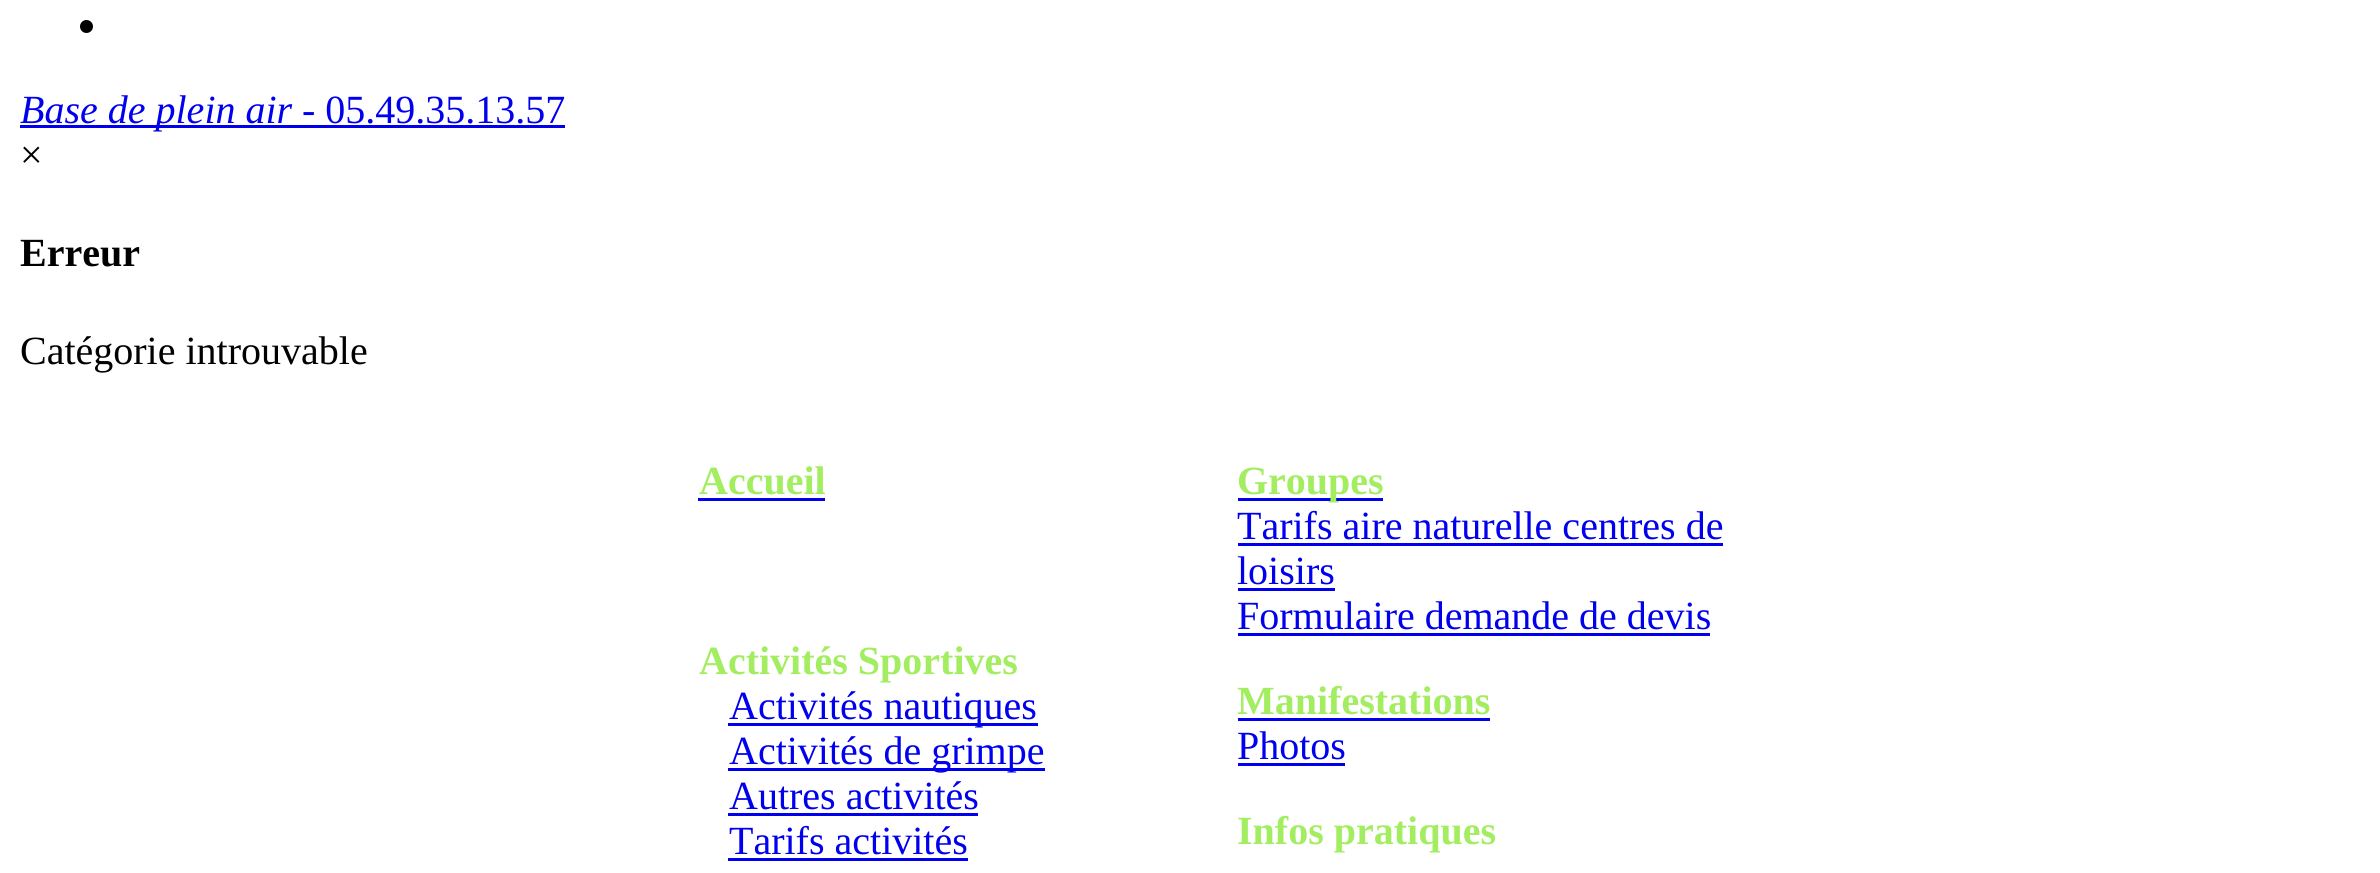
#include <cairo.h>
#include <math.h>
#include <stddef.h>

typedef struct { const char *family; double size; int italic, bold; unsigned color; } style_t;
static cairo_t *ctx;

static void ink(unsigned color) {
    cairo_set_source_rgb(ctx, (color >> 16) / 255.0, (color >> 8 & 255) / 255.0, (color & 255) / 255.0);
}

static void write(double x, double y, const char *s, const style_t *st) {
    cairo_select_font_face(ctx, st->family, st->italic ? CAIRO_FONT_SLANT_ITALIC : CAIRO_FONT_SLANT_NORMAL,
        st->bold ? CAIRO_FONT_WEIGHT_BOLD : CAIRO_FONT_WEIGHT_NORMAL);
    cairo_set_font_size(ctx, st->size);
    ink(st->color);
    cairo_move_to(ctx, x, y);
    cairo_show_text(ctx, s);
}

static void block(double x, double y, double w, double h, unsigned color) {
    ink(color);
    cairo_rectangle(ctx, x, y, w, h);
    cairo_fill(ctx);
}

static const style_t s1 = {"Liberation Serif", 40, 1, 0, 0x0000ee};
static const style_t s2 = {"Liberation Serif", 40, 0, 0, 0x0000ee};
static const style_t s3 = {"Liberation Serif", 40, 0, 0, 0x000000};
static const style_t s4 = {"Liberation Serif", 40, 0, 1, 0x000000};
static const style_t s5 = {"Liberation Serif", 40, 0, 1, 0xa3ed61};

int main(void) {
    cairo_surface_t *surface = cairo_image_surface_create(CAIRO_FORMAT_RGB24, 2380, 873);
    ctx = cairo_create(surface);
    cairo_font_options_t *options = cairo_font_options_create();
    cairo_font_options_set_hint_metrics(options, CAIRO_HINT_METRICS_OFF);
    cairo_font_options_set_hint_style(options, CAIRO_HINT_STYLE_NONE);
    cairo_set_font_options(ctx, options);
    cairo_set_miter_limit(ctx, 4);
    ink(0xffffff);
    cairo_paint(ctx);
    ink(0x000000);
    cairo_arc(ctx, 86.5, 26.5, 6.5, 0, 2 * M_PI);
    cairo_fill(ctx);
    block(20, 125, 545, 3, 0x0000ee);
    write(20, 123, "Base de plein air", &s1);
    write(302, 123, "- 05.49.35.13.57", &s2);
    write(20, 168, "×", &s3);
    write(20, 266, "Erreur", &s4);
    write(20, 364, "Catégorie introuvable", &s3);
    write(699, 494, "Accueil", &s5);
    block(698, 498, 127, 3, 0x0000ee);
    write(699, 674, "Activités Sportives", &s5);
    block(728, 723, 310, 3, 0x0000ee);
    write(729, 719, "Activités nautiques", &s2);
    block(728, 768, 317, 3, 0x0000ee);
    write(729, 764, "Activités de grimpe", &s2);
    write(729, 809, "Autres activités", &s2);
    block(728, 813, 250, 3, 0x0000ee);
    write(729, 854, "Tarifs activités", &s2);
    block(728, 858, 240, 3, 0x0000ee);
    block(1238, 498, 145, 3, 0x0000ee);
    write(1237, 494, "Groupes", &s5);
    write(1237, 539, "Tarifs aire naturelle centres de", &s2);
    block(1238, 543, 485, 3, 0x0000ee);
    write(1237, 584, "loisirs", &s2);
    block(1238, 588, 97, 3, 0x0000ee);
    write(1237, 629, "Formulaire demande de devis", &s2);
    block(1238, 633, 472, 3, 0x0000ee);
    write(1237, 714, "Manifestations", &s5);
    block(1238, 718, 252, 3, 0x0000ee);
    write(1237, 759, "Photos", &s2);
    block(1238, 763, 107, 3, 0x0000ee);
    write(1237, 844, "Infos pratiques", &s5);
    cairo_surface_write_to_png(surface, "screenshot.png");
    cairo_font_options_destroy(options);
    cairo_destroy(ctx);
    cairo_surface_destroy(surface);
    return 0;
}
